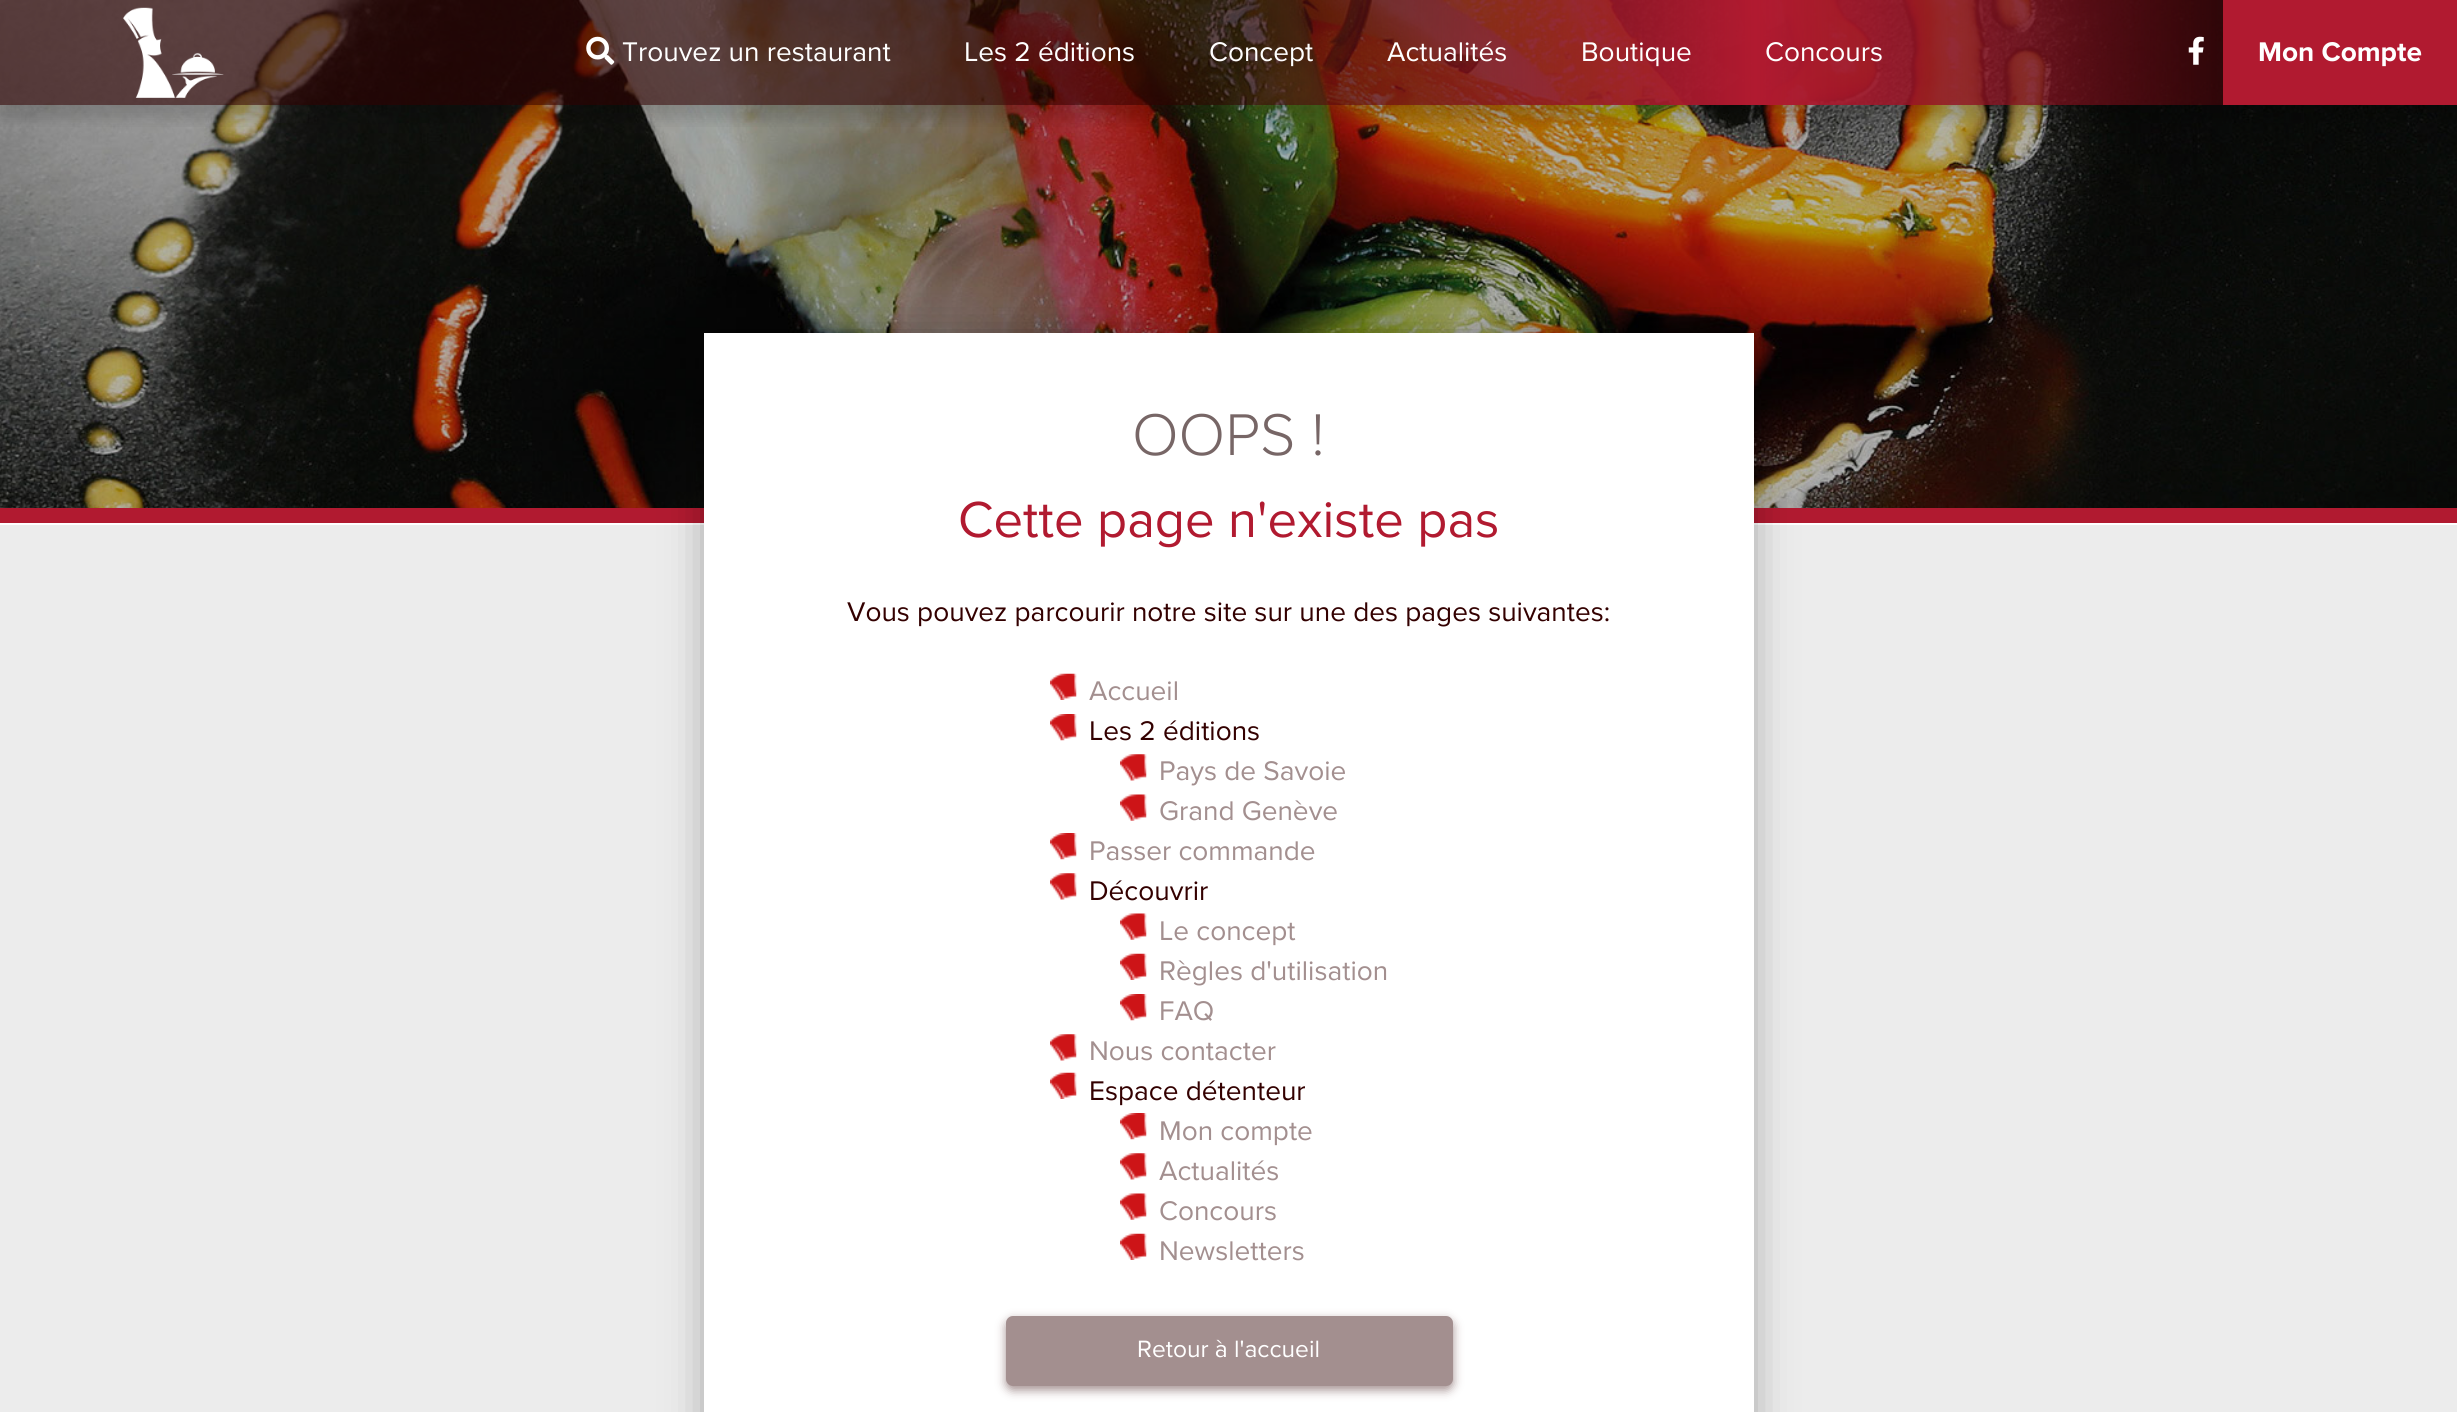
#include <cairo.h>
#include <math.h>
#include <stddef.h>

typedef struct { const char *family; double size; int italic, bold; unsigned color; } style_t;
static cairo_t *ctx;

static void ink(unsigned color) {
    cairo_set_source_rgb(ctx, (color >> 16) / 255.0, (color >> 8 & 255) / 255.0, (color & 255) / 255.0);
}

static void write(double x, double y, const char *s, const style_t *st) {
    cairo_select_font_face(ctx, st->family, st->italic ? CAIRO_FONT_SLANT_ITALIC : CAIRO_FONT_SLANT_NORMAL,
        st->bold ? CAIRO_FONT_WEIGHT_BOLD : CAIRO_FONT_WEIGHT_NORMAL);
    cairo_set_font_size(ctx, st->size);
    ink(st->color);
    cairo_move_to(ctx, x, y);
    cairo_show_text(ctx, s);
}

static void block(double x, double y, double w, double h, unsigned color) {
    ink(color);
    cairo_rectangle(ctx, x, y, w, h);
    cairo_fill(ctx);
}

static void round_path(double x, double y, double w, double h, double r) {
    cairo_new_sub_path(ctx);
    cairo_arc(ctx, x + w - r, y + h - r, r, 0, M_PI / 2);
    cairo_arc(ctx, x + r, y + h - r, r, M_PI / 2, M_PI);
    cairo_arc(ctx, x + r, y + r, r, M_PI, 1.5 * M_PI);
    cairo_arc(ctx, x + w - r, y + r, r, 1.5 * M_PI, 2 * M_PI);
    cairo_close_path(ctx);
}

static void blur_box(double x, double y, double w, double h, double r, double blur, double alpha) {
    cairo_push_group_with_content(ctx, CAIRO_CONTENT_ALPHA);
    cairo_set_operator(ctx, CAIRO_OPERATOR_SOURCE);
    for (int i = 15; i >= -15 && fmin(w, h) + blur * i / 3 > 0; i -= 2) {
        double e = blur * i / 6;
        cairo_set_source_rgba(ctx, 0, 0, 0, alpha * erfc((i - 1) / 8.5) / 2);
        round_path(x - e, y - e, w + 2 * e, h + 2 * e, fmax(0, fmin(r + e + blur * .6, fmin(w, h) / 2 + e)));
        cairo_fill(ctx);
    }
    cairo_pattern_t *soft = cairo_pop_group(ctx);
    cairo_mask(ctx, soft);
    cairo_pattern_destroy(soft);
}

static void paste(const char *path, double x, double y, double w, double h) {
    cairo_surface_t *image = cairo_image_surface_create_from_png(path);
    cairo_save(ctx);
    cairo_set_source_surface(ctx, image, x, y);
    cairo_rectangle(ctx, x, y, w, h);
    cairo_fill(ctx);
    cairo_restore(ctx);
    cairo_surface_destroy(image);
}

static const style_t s1 = {"Proxima Nova", 28, 0, 0, 0xffffff};
static const style_t s2 = {"Proxima Nova", 28, 0, 1, 0xffffff};
static const style_t s3 = {"Proxima Nova Light", 61, 0, 0, 0x776666};
static const style_t s4 = {"Proxima Nova", 52.5, 0, 0, 0xb11a30};
static const style_t s5 = {"Proxima Nova", 28, 0, 0, 0x330000};
static const style_t s6 = {"Proxima Nova", 28, 0, 0, 0xa38f8f};
static const style_t s7 = {"Proxima Nova", 24.5, 0, 0, 0xffffff};

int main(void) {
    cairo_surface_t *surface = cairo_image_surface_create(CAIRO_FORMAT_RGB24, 2457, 1412);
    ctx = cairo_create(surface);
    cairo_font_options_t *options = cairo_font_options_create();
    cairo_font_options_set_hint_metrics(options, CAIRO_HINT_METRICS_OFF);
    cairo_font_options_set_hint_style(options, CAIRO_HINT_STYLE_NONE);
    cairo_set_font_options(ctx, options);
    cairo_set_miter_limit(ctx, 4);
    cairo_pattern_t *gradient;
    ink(0xececec);
    cairo_paint(ctx);
    paste("pic1.png", 0, 0, 2457, 508);
    block(0, 523, 2457, 2, 0xffffff);
    block(0, 508, 2457, 15, 0xb11a30);
    cairo_save(ctx);
    cairo_rectangle(ctx, 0, 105, 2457, 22);
    cairo_clip(ctx);
    ink(0x000000);
    blur_box(0, 14, 2457, 105, 0, 7, 0.15);
    cairo_restore(ctx);
    cairo_set_source_rgba(ctx, 0.18, 0, 0, 0.6);
    cairo_rectangle(ctx, 0, 0, 2223, 105);
    cairo_fill(ctx);
    gradient = cairo_pattern_create_linear(1229, 53, 2282, 52);
    cairo_pattern_add_color_stop_rgba(gradient, 0, 0.694, 0.102, 0.188, 0);
    cairo_pattern_add_color_stop_rgba(gradient, 0.5, 0.694, 0.102, 0.188, 1);
    cairo_pattern_add_color_stop_rgba(gradient, 1, 0.694, 0.102, 0.188, 0);
    cairo_set_source(ctx, gradient);
    cairo_pattern_destroy(gradient);
    cairo_rectangle(ctx, 1240, 0, 983, 105);
    cairo_fill(ctx);
    paste("pic2.png", 123, 7, 101, 91);
    paste("pic3.png", 586, 36, 29, 29);
    write(622, 61, "Trouvez un restaurant", &s1);
    write(964, 61, "Les 2 éditions", &s1);
    write(1209, 61, "Concept", &s1);
    write(1387, 61, "Actualités", &s1);
    write(1581, 61, "Boutique", &s1);
    write(1765, 61, "Concours", &s1);
    paste("pic4.png", 2188, 36, 16, 29);
    block(2223, 0, 234, 105, 0xb11a30);
    write(2258, 61, "Mon Compte", &s2);
    ink(0x000000);
    blur_box(711, 340, 1036, 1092, 0, 22, 0.4);
    block(704, 333, 1050, 1079, 0xffffff);
    write(1132, 455, "OOPS !", &s3);
    write(958, 537, "Cette page n'existe pas", &s4);
    write(847, 621, "Vous pouvez parcourir notre site sur une des pages suivantes:", &s5);
    paste("pic5.png", 1050, 673, 27, 27);
    write(1089, 700, "Accueil", &s6);
    paste("pic6.png", 1050, 714, 27, 27);
    write(1089, 740, "Les 2 éditions", &s5);
    paste("pic7.png", 1120, 754, 27, 27);
    write(1159, 780, "Pays de Savoie", &s6);
    paste("pic8.png", 1120, 794, 27, 27);
    write(1159, 820, "Grand Genève", &s6);
    paste("pic6.png", 1050, 833, 27, 27);
    write(1089, 860, "Passer commande", &s6);
    paste("pic9.png", 1050, 873, 27, 27);
    write(1089, 900, "Découvrir", &s5);
    paste("pic8.png", 1120, 913, 27, 27);
    write(1159, 940, "Le concept", &s6);
    paste("pic10.png", 1120, 953, 27, 27);
    write(1159, 980, "Règles d'utilisation", &s6);
    paste("pic11.png", 1120, 994, 27, 27);
    write(1159, 1020, "FAQ", &s6);
    paste("pic9.png", 1050, 1034, 27, 27);
    write(1089, 1060, "Nous contacter", &s6);
    paste("pic5.png", 1050, 1072, 27, 27);
    write(1089, 1100, "Espace détenteur", &s5);
    paste("pic11.png", 1120, 1113, 27, 27);
    write(1159, 1140, "Mon compte", &s6);
    paste("pic7.png", 1120, 1153, 27, 27);
    write(1159, 1180, "Actualités", &s6);
    paste("pic8.png", 1120, 1193, 27, 27);
    write(1159, 1220, "Concours", &s6);
    paste("pic10.png", 1120, 1233, 27, 27);
    write(1159, 1260, "Newsletters", &s6);
    ink(0xa38f8f);
    blur_box(1006, 1320, 447, 70, 7, 5, 1);
    ink(0xa38f8f);
    round_path(1006, 1316, 447, 70, 7);
    cairo_fill(ctx);
    write(1137, 1357, "Retour à l'accueil", &s7);
    cairo_surface_write_to_png(surface, "screenshot.png");
    cairo_font_options_destroy(options);
    cairo_destroy(ctx);
    cairo_surface_destroy(surface);
    return 0;
}
